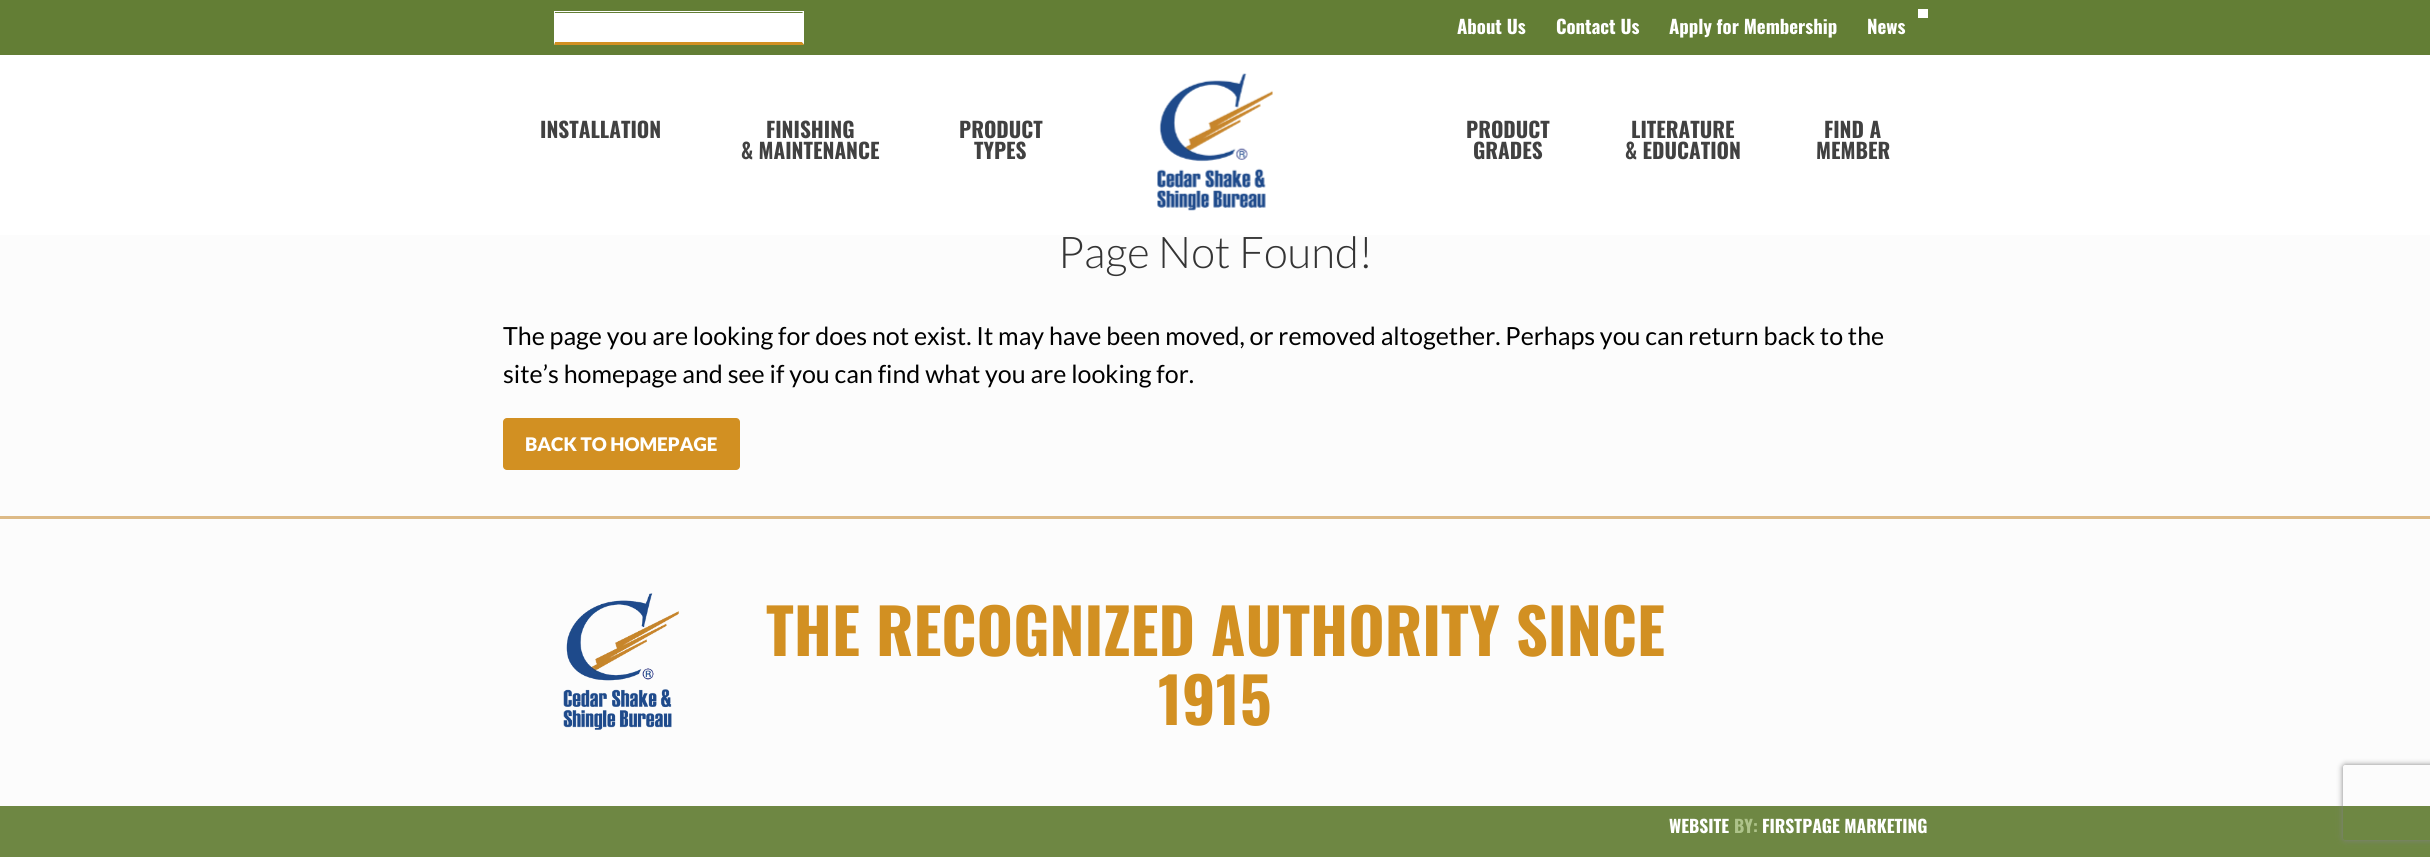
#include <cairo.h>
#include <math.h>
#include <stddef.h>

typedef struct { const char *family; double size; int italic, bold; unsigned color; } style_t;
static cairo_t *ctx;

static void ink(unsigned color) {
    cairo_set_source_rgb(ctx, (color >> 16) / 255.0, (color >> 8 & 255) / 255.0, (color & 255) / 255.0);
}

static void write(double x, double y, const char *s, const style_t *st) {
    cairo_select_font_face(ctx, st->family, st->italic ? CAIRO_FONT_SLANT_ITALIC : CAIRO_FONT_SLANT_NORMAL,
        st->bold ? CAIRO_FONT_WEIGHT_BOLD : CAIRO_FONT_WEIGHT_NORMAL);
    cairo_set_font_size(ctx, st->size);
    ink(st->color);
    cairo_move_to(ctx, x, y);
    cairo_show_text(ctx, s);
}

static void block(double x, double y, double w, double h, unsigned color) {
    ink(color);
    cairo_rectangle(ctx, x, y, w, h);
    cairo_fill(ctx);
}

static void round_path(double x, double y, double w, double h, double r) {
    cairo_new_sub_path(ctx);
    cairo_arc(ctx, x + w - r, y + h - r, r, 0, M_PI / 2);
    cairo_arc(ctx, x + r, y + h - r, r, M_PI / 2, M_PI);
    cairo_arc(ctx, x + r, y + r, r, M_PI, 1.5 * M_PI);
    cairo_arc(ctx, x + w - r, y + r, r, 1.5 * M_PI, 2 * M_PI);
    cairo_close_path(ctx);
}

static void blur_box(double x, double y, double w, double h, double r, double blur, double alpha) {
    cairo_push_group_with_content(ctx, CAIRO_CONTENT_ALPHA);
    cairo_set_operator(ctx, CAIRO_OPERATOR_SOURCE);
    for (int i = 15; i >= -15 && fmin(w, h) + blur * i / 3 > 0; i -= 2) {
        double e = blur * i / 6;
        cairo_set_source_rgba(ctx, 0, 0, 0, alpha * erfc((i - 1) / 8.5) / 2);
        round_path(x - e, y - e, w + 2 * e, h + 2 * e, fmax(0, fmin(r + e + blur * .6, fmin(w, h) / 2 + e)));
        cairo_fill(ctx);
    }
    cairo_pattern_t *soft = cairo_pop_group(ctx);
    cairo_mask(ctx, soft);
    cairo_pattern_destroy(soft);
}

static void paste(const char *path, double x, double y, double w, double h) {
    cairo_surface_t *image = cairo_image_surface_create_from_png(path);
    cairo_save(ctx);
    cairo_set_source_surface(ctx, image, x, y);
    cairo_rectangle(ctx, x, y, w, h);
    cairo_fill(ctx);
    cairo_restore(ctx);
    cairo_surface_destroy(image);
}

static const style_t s1 = {"Oswald", 18.75, 0, 1, 0xffffff};
static const style_t s2 = {"Oswald", 21.25, 0, 1, 0x414141};
static const style_t s3 = {"Lato Light", 43.75, 0, 0, 0x343434};
static const style_t s4 = {"Lato", 25, 0, 0, 0x000000};
static const style_t s5 = {"Lato Black", 18.75, 0, 0, 0xffffff};
static const style_t s6 = {"Oswald", 62.5, 0, 1, 0xd29022};
static const style_t s7 = {"Oswald", 17.5, 0, 1, 0xffffff};
static const style_t s8 = {"Oswald", 17.5, 0, 1, 0xaec38a};

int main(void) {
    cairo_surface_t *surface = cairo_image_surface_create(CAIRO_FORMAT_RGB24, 2430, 857);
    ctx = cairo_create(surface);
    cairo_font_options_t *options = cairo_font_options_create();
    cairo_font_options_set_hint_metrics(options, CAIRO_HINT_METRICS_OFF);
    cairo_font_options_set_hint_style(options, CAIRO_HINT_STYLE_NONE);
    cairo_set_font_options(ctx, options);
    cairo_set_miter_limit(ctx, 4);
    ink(0xfcfcfc);
    cairo_paint(ctx);
    block(0, 0, 2430, 55, 0x637e35);
    block(555, 13, 248, 30, 0xffffff);
    block(554, 11, 250, 1, 0xffffff);
    cairo_new_path(ctx);
    cairo_move_to(ctx, 804, 11);
    cairo_line_to(ctx, 804, 45);
    cairo_line_to(ctx, 802.5, 42.5);
    cairo_line_to(ctx, 802.5, 12.5);
    cairo_close_path(ctx);
    cairo_fill(ctx);
    ink(0xd29022);
    cairo_new_path(ctx);
    cairo_move_to(ctx, 804, 45);
    cairo_line_to(ctx, 554, 45);
    cairo_line_to(ctx, 555, 42);
    cairo_line_to(ctx, 802, 42);
    cairo_close_path(ctx);
    cairo_fill(ctx);
    ink(0xffffff);
    cairo_new_path(ctx);
    cairo_move_to(ctx, 554, 45);
    cairo_line_to(ctx, 554, 11);
    cairo_line_to(ctx, 555, 12.5);
    cairo_line_to(ctx, 555, 42.5);
    cairo_close_path(ctx);
    cairo_fill(ctx);
    write(1457, 34, "About Us", &s1);
    write(1556, 34, "Contact Us", &s1);
    write(1669, 34, "Apply for Membership", &s1);
    write(1867, 34, "News", &s1);
    block(1918, 9, 10, 9, 0xffffff);
    block(0, 55, 2430, 180, 0xffffff);
    paste("pic1.png", 1157, 73, 116, 138);
    write(540, 138, "INSTALLATION", &s2);
    write(766, 138, "FINISHING", &s2);
    write(741, 159, "& MAINTENANCE", &s2);
    write(959, 138, "PRODUCT", &s2);
    write(974, 159, "TYPES", &s2);
    write(1466, 138, "PRODUCT", &s2);
    write(1473, 159, "GRADES", &s2);
    write(1631, 138, "LITERATURE", &s2);
    write(1625, 159, "& EDUCATION", &s2);
    write(1824, 138, "FIND A", &s2);
    write(1816, 159, "MEMBER", &s2);
    write(1058, 268, "Page Not Found!", &s3);
    write(503, 345, "The page you are looking for does not exist. It may have been moved, or removed altogether. Perhaps you can return back to the", &s4);
    write(503, 383, "site’s homepage and see if you can find what you are looking for.", &s4);
    ink(0xd29022);
    round_path(503, 418, 237, 52, 4);
    cairo_fill(ctx);
    write(525, 451, "BACK TO HOMEPAGE", &s5);
    block(0, 516, 2430, 3, 0xddba87);
    paste("pic2.png", 563, 593, 116, 137);
    write(766, 656, "THE RECOGNIZED AUTHORITY SINCE", &s6);
    write(1158, 725, "1915", &s6);
    block(0, 806, 2430, 51, 0x6e8743);
    write(1669, 833, "WEBSITE", &s7);
    write(1734, 833, "BY:", &s8);
    write(1762, 833, "FIRSTPAGE MARKETING", &s7);
    cairo_save(ctx);
    cairo_set_fill_rule(ctx, CAIRO_FILL_RULE_EVEN_ODD);
    cairo_new_path(ctx);
    cairo_move_to(ctx, 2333, 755);
    cairo_line_to(ctx, 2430, 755);
    cairo_line_to(ctx, 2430, 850);
    cairo_line_to(ctx, 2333, 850);
    cairo_close_path(ctx);
    cairo_move_to(ctx, 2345.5, 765);
    cairo_line_to(ctx, 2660.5, 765);
    cairo_curve_to(ctx, 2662, 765, 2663, 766, 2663, 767.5);
    cairo_line_to(ctx, 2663, 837.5);
    cairo_curve_to(ctx, 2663, 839, 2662, 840, 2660.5, 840);
    cairo_line_to(ctx, 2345.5, 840);
    cairo_curve_to(ctx, 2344, 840, 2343, 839, 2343, 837.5);
    cairo_line_to(ctx, 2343, 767.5);
    cairo_curve_to(ctx, 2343, 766, 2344, 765, 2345.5, 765);
    cairo_close_path(ctx);
    cairo_clip(ctx);
    ink(0x808080);
    blur_box(2343, 765, 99, 75, 2.5, 3, 1);
    cairo_restore(ctx);
    cairo_surface_write_to_png(surface, "screenshot.png");
    cairo_font_options_destroy(options);
    cairo_destroy(ctx);
    cairo_surface_destroy(surface);
    return 0;
}
